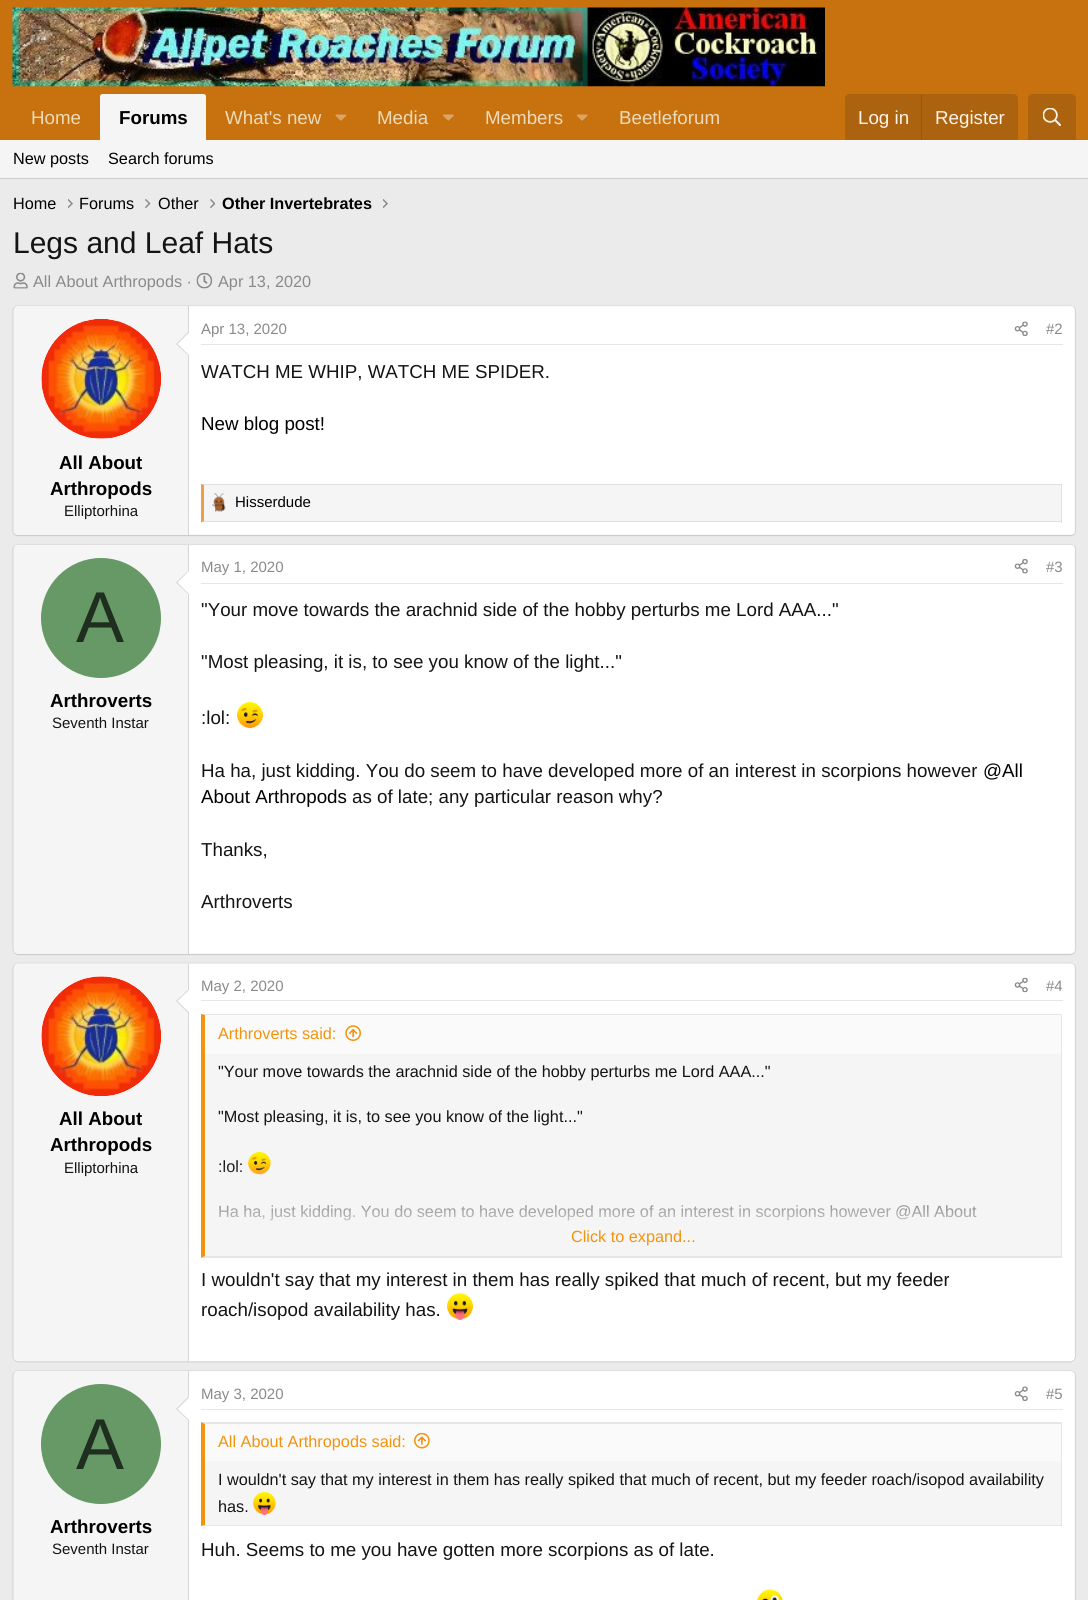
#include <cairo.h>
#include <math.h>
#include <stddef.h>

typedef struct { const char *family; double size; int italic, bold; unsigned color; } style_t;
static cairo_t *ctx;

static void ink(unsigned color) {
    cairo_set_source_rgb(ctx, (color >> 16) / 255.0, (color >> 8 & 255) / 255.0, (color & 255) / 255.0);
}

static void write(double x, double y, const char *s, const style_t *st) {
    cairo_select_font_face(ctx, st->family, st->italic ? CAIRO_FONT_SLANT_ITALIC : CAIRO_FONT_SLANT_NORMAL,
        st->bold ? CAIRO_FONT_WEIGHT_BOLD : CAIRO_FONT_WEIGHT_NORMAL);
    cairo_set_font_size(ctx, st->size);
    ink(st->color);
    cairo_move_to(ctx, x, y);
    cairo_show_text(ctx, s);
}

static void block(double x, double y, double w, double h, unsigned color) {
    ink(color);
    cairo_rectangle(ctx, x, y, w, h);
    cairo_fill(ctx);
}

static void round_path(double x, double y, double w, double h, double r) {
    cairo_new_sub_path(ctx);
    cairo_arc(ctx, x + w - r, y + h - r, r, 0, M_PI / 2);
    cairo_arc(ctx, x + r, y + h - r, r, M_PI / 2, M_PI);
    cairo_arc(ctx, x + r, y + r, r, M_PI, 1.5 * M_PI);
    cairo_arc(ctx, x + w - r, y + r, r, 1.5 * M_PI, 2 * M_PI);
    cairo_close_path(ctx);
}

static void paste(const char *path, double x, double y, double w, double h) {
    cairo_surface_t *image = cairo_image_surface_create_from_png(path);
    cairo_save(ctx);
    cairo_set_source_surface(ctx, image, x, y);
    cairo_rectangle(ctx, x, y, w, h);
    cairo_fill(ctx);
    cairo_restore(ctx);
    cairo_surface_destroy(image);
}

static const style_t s1 = {"Liberation Sans", 18.75, 0, 0, 0xeddbba};
static const style_t s2 = {"Liberation Sans", 18.75, 0, 1, 0x000000};
static const style_t s3 = {"Liberation Sans", 18.75, 0, 0, 0xfcf4e8};
static const style_t s4 = {"Liberation Sans", 16.25, 0, 0, 0x000000};
static const style_t s5 = {"Liberation Sans", 16.25, 0, 1, 0x000000};
static const style_t s6 = {"Liberation Sans", 30, 0, 0, 0x141414};
static const style_t s7 = {"Liberation Sans", 16.25, 0, 0, 0x8a8a8a};
static const style_t s8 = {"Liberation Sans", 15, 0, 0, 0x141414};
static const style_t s9 = {"Liberation Sans", 15, 0, 0, 0x8a8a8a};
static const style_t s10 = {"Liberation Sans", 18.75, 0, 0, 0x141414};
static const style_t s11 = {"Liberation Sans", 18.75, 0, 0, 0x000000};
static const style_t s12 = {"Liberation Sans", 15, 0, 0, 0x000000};
static const style_t s13 = {"Liberation Sans", 72, 0, 0, 0x1f2e1f};
static const style_t s14 = {"Liberation Sans", 16.25, 0, 0, 0xf2930d};
static const style_t s15 = {"Liberation Sans", 16.25, 0, 0, 0x141414};

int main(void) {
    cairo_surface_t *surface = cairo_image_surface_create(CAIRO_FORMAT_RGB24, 1088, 1600);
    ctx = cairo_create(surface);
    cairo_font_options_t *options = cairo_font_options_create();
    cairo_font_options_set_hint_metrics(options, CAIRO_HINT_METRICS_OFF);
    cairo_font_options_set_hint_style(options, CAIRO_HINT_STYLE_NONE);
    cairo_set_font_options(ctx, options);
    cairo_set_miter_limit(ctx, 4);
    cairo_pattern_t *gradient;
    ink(0xebebeb);
    cairo_paint(ctx);
    block(0, 0, 1088, 140, 0xc7710f);
    paste("pic1.png", 12, 7, 813, 80);
    write(31, 124, "Home", &s1);
    ink(0xf5f5f5);
    cairo_new_path(ctx);
    cairo_move_to(ctx, 102.5, 94);
    cairo_line_to(ctx, 203.5, 94);
    cairo_curve_to(ctx, 205, 94, 206, 95, 206, 96.5);
    cairo_line_to(ctx, 206, 140);
    cairo_line_to(ctx, 100, 140);
    cairo_line_to(ctx, 100, 96.5);
    cairo_curve_to(ctx, 100, 95, 101, 94, 102.5, 94);
    cairo_close_path(ctx);
    cairo_fill(ctx);
    write(119, 124, "Forums", &s2);
    write(225, 124, "What's new", &s1);
    paste("pic2.png", 335, 114, 12, 7);
    write(377, 124, "Media", &s1);
    paste("pic3.png", 443, 114, 11, 7);
    write(485, 124, "Members", &s1);
    paste("pic4.png", 576, 114, 12, 7);
    write(619, 124, "Beetleforum", &s1);
    ink(0xac6310);
    cairo_new_path(ctx);
    cairo_move_to(ctx, 850, 94);
    cairo_line_to(ctx, 1013, 94);
    cairo_curve_to(ctx, 1016, 94, 1018, 96, 1018, 99);
    cairo_line_to(ctx, 1018, 140);
    cairo_line_to(ctx, 845, 140);
    cairo_line_to(ctx, 845, 99);
    cairo_curve_to(ctx, 845, 96, 847, 94, 850, 94);
    cairo_close_path(ctx);
    cairo_fill(ctx);
    write(858, 124, "Log in", &s3);
    block(921, 94, 1, 46, 0x955711);
    write(935, 124, "Register", &s3);
    ink(0xac6310);
    cairo_new_path(ctx);
    cairo_move_to(ctx, 1033, 94);
    cairo_line_to(ctx, 1071, 94);
    cairo_curve_to(ctx, 1074, 94, 1076, 96, 1076, 99);
    cairo_line_to(ctx, 1076, 140);
    cairo_line_to(ctx, 1028, 140);
    cairo_line_to(ctx, 1028, 99);
    cairo_curve_to(ctx, 1028, 96, 1030, 94, 1033, 94);
    cairo_close_path(ctx);
    cairo_fill(ctx);
    paste("pic5.png", 1043, 108, 18, 18);
    block(0, 140, 1088, 38, 0xf5f5f5);
    block(0, 178, 1088, 1, 0xcccccc);
    write(13, 164, "New posts", &s4);
    write(108, 164, "Search forums", &s4);
    write(13, 209, "Home", &s4);
    paste("pic6.png", 68, 199, 5, 9);
    write(79, 209, "Forums", &s4);
    paste("pic7.png", 145, 199, 6, 9);
    write(158, 209, "Other", &s4);
    paste("pic8.png", 210, 199, 5, 9);
    write(222, 209, "Other Invertebrates", &s5);
    paste("pic6.png", 383, 199, 5, 9);
    write(13, 253, "Legs and Leaf Hats", &s6);
    paste("pic9.png", 13, 272, 15, 17);
    write(33, 287, "All About Arthropods ·", &s7);
    paste("pic10.png", 196, 272, 17, 17);
    write(218, 287, "Apr 13, 2020", &s7);
    ink(0xffffff);
    round_path(13, 305, 1063, 231, 5);
    cairo_fill(ctx);
    cairo_new_path(ctx);
    cairo_move_to(ctx, 14.5, 307);
    cairo_line_to(ctx, 17.5, 305.5);
    cairo_line_to(ctx, 1071, 305.5);
    cairo_line_to(ctx, 1074.5, 307);
    ink(0xe0e0e0);
    cairo_set_line_width(ctx, 1.2);
    cairo_stroke(ctx);
    cairo_new_path(ctx);
    cairo_move_to(ctx, 1074.5, 307);
    cairo_line_to(ctx, 1075.5, 310);
    cairo_line_to(ctx, 1075.5, 531.5);
    cairo_line_to(ctx, 1074.5, 534.5);
    ink(0xd6d6d6);
    cairo_stroke(ctx);
    cairo_new_path(ctx);
    cairo_move_to(ctx, 1074.5, 534.5);
    cairo_line_to(ctx, 1071, 535.5);
    cairo_line_to(ctx, 17.5, 535.5);
    cairo_line_to(ctx, 14.5, 534.5);
    ink(0xcccccc);
    cairo_stroke(ctx);
    cairo_new_path(ctx);
    cairo_move_to(ctx, 14.5, 534.5);
    cairo_line_to(ctx, 13, 531.5);
    cairo_line_to(ctx, 13, 347);
    cairo_line_to(ctx, 13, 310);
    cairo_line_to(ctx, 14.5, 307);
    ink(0xd6d6d6);
    cairo_stroke(ctx);
    ink(0xf5f5f5);
    cairo_new_path(ctx);
    cairo_move_to(ctx, 18, 306);
    cairo_line_to(ctx, 189, 306);
    cairo_line_to(ctx, 189, 535);
    cairo_line_to(ctx, 18, 535);
    cairo_curve_to(ctx, 16, 535, 14, 533, 14, 531);
    cairo_line_to(ctx, 14, 310);
    cairo_curve_to(ctx, 14, 308, 16, 306, 18, 306);
    cairo_close_path(ctx);
    cairo_fill(ctx);
    block(188, 306, 1, 229, 0xd6d6d6);
    ink(0xffffff);
    cairo_arc(ctx, 101, 379, 60, 0, 2 * M_PI);
    cairo_fill(ctx);
    paste("pic11.png", 41, 319, 120, 120);
    ink(0xd6d6d6);
    cairo_new_path(ctx);
    cairo_move_to(ctx, 189, 331);
    cairo_line_to(ctx, 189, 356);
    cairo_line_to(ctx, 176, 344);
    cairo_close_path(ctx);
    cairo_fill(ctx);
    ink(0xffffff);
    cairo_new_path(ctx);
    cairo_move_to(ctx, 189, 332.5);
    cairo_line_to(ctx, 189, 355);
    cairo_line_to(ctx, 177.5, 344);
    cairo_close_path(ctx);
    cairo_fill(ctx);
    write(59, 469, "All About", &s2);
    write(50, 495, "Arthropods", &s2);
    write(64, 516, "Elliptorhina", &s8);
    block(201, 344, 862, 1, 0xe6e6e6);
    write(201, 334, "Apr 13, 2020", &s9);
    paste("pic12.png", 1014, 321, 14, 15);
    write(1046, 334, "#2", &s9);
    write(201, 378, "WATCH ME WHIP, WATCH ME SPIDER.", &s10);
    write(201, 430, "New blog post!", &s11);
    block(204, 485, 857, 36, 0xf5f5f5);
    ink(0xe0e0e0);
    cairo_new_path(ctx);
    cairo_move_to(ctx, 201, 484);
    cairo_line_to(ctx, 1062, 484);
    cairo_line_to(ctx, 1061, 485);
    cairo_line_to(ctx, 204, 485);
    cairo_close_path(ctx);
    cairo_fill(ctx);
    block(1061, 484, 1, 39, 0xe0e0e0);
    cairo_new_path(ctx);
    cairo_move_to(ctx, 1062, 522);
    cairo_line_to(ctx, 201, 522);
    cairo_line_to(ctx, 204, 521);
    cairo_line_to(ctx, 1061, 521);
    cairo_close_path(ctx);
    cairo_fill(ctx);
    ink(0xeb9e47);
    cairo_new_path(ctx);
    cairo_move_to(ctx, 201, 522.5);
    cairo_line_to(ctx, 201, 484);
    cairo_line_to(ctx, 204, 485);
    cairo_line_to(ctx, 204, 521);
    cairo_close_path(ctx);
    cairo_fill(ctx);
    paste("pic13.png", 211, 493, 15, 19);
    write(235, 507, "Hisserdude", &s12);
    ink(0xffffff);
    round_path(13, 544, 1063, 411, 5);
    cairo_fill(ctx);
    cairo_new_path(ctx);
    cairo_move_to(ctx, 14.5, 545.5);
    cairo_line_to(ctx, 17.5, 544.5);
    cairo_line_to(ctx, 1071, 544.5);
    cairo_line_to(ctx, 1074.5, 545.5);
    ink(0xe0e0e0);
    cairo_stroke(ctx);
    cairo_new_path(ctx);
    cairo_move_to(ctx, 1074.5, 545.5);
    cairo_line_to(ctx, 1075.5, 549);
    cairo_line_to(ctx, 1075.5, 950);
    cairo_line_to(ctx, 1074.5, 953);
    ink(0xd6d6d6);
    cairo_stroke(ctx);
    cairo_new_path(ctx);
    cairo_move_to(ctx, 1074.5, 953);
    cairo_line_to(ctx, 1071, 954.5);
    cairo_line_to(ctx, 17.5, 954.5);
    cairo_line_to(ctx, 14.5, 953);
    ink(0xcccccc);
    cairo_stroke(ctx);
    cairo_new_path(ctx);
    cairo_move_to(ctx, 14.5, 953);
    cairo_line_to(ctx, 13, 950);
    cairo_line_to(ctx, 13, 549);
    cairo_line_to(ctx, 14.5, 545.5);
    ink(0xd6d6d6);
    cairo_stroke(ctx);
    ink(0xf5f5f5);
    cairo_new_path(ctx);
    cairo_move_to(ctx, 18, 545);
    cairo_line_to(ctx, 189, 545);
    cairo_line_to(ctx, 189, 954);
    cairo_line_to(ctx, 18, 954);
    cairo_curve_to(ctx, 16, 954, 14, 952, 14, 950);
    cairo_line_to(ctx, 14, 549);
    cairo_curve_to(ctx, 14, 547, 16, 545, 18, 545);
    cairo_close_path(ctx);
    cairo_fill(ctx);
    block(188, 545, 1, 409, 0xd6d6d6);
    cairo_new_path(ctx);
    cairo_move_to(ctx, 189, 570);
    cairo_line_to(ctx, 189, 595);
    cairo_line_to(ctx, 176, 582.5);
    cairo_close_path(ctx);
    cairo_fill(ctx);
    ink(0xffffff);
    cairo_new_path(ctx);
    cairo_move_to(ctx, 189, 571);
    cairo_line_to(ctx, 189, 594);
    cairo_line_to(ctx, 177.5, 582.5);
    cairo_close_path(ctx);
    cairo_fill(ctx);
    ink(0x669966);
    cairo_arc(ctx, 101, 618, 60, 0, 2 * M_PI);
    cairo_fill(ctx);
    write(76, 642, "A", &s13);
    write(50, 707, "Arthroverts", &s2);
    write(52, 728, "Seventh Instar", &s8);
    block(201, 583, 862, 1, 0xe6e6e6);
    write(201, 572, "May 1, 2020", &s9);
    paste("pic14.png", 1014, 559, 14, 15);
    write(1046, 572, "#3", &s9);
    write(201, 616, "\"Your move towards the arachnid side of the hobby perturbs me Lord AAA...\"", &s10);
    write(201, 668, "\"Most pleasing, it is, to see you know of the light...\"", &s10);
    write(201, 724, ":lol:", &s10);
    paste("pic15.png", 237, 702, 26, 26);
    write(201, 777, "Ha ha, just kidding. You do seem to have developed more of an interest in scorpions however", &s10);
    write(983, 777, "@All", &s11);
    write(201, 803, "About Arthropods", &s11);
    write(352, 803, "as of late; any particular reason why?", &s10);
    write(201, 856, "Thanks,", &s10);
    write(201, 908, "Arthroverts", &s10);
    ink(0xffffff);
    round_path(13, 963, 1063, 400, 5);
    cairo_fill(ctx);
    cairo_new_path(ctx);
    cairo_move_to(ctx, 14.5, 964.5);
    cairo_line_to(ctx, 17.5, 963);
    cairo_line_to(ctx, 1071, 963);
    cairo_line_to(ctx, 1074.5, 964.5);
    ink(0xe0e0e0);
    cairo_stroke(ctx);
    cairo_new_path(ctx);
    cairo_move_to(ctx, 1074.5, 964.5);
    cairo_line_to(ctx, 1075.5, 967.5);
    cairo_line_to(ctx, 1075.5, 1357.5);
    cairo_line_to(ctx, 1074.5, 1360.5);
    ink(0xd6d6d6);
    cairo_stroke(ctx);
    cairo_new_path(ctx);
    cairo_move_to(ctx, 1074.5, 1360.5);
    cairo_line_to(ctx, 1071, 1362);
    cairo_line_to(ctx, 17.5, 1362);
    cairo_line_to(ctx, 14.5, 1360.5);
    ink(0xcccccc);
    cairo_stroke(ctx);
    cairo_new_path(ctx);
    cairo_move_to(ctx, 14.5, 1360.5);
    cairo_line_to(ctx, 13, 1357.5);
    cairo_line_to(ctx, 13, 967.5);
    cairo_line_to(ctx, 14.5, 964.5);
    ink(0xd6d6d6);
    cairo_stroke(ctx);
    ink(0xf5f5f5);
    cairo_new_path(ctx);
    cairo_move_to(ctx, 18, 964);
    cairo_line_to(ctx, 189, 964);
    cairo_line_to(ctx, 189, 1361);
    cairo_line_to(ctx, 18, 1361);
    cairo_curve_to(ctx, 16, 1361, 14, 1359, 14, 1357);
    cairo_line_to(ctx, 14, 968);
    cairo_curve_to(ctx, 14, 966, 16, 964, 18, 964);
    cairo_close_path(ctx);
    cairo_fill(ctx);
    block(188, 964, 1, 397, 0xd6d6d6);
    ink(0xffffff);
    cairo_arc(ctx, 101, 1036, 60, 0, 2 * M_PI);
    cairo_fill(ctx);
    paste("pic16.png", 41, 976, 120, 120);
    ink(0xd6d6d6);
    cairo_new_path(ctx);
    cairo_move_to(ctx, 189, 989);
    cairo_line_to(ctx, 189, 1014);
    cairo_line_to(ctx, 176, 1001);
    cairo_close_path(ctx);
    cairo_fill(ctx);
    ink(0xffffff);
    cairo_new_path(ctx);
    cairo_move_to(ctx, 189, 990);
    cairo_line_to(ctx, 189, 1012.5);
    cairo_line_to(ctx, 177.5, 1001);
    cairo_close_path(ctx);
    cairo_fill(ctx);
    write(59, 1125, "All About", &s2);
    write(50, 1151, "Arthropods", &s2);
    write(64, 1173, "Elliptorhina", &s8);
    block(201, 1000, 862, 1, 0xe6e6e6);
    write(201, 991, "May 2, 2020", &s9);
    paste("pic17.png", 1014, 977, 14, 16);
    write(1046, 991, "#4", &s9);
    block(205, 1054, 856, 183, 0xf5f5f5);
    ink(0xe6e6e6);
    cairo_new_path(ctx);
    cairo_move_to(ctx, 201, 1014);
    cairo_line_to(ctx, 1062, 1014);
    cairo_line_to(ctx, 1061, 1015);
    cairo_line_to(ctx, 205, 1015);
    cairo_close_path(ctx);
    cairo_fill(ctx);
    block(1061, 1014, 1, 244, 0xe6e6e6);
    cairo_new_path(ctx);
    cairo_move_to(ctx, 1062, 1258);
    cairo_line_to(ctx, 201, 1258);
    cairo_line_to(ctx, 205, 1256);
    cairo_line_to(ctx, 1061, 1256);
    cairo_close_path(ctx);
    cairo_fill(ctx);
    ink(0xf2930d);
    cairo_new_path(ctx);
    cairo_move_to(ctx, 201, 1258);
    cairo_line_to(ctx, 201, 1014);
    cairo_line_to(ctx, 205, 1015);
    cairo_line_to(ctx, 205, 1256);
    cairo_close_path(ctx);
    cairo_fill(ctx);
    block(205, 1015, 856, 39, 0xfafafa);
    write(218, 1039, "Arthroverts said:", &s14);
    paste("pic18.png", 345, 1025, 16, 16);
    write(218, 1077, "\"Your move towards the arachnid side of the hobby perturbs me Lord AAA...\"", &s15);
    write(218, 1122, "\"Most pleasing, it is, to see you know of the light...\"", &s15);
    write(218, 1172, ":lol:", &s15);
    paste("pic19.png", 248, 1152, 23, 23);
    write(218, 1217, "Ha ha, just kidding. You do seem to have developed more of an interest in scorpions however", &s15);
    write(895, 1217, "@All About", &s4);
    gradient = cairo_pattern_create_linear(633, 1163, 633, 1256);
    cairo_pattern_add_color_stop_rgba(gradient, 0, 0.961, 0.961, 0.961, 0);
    cairo_pattern_add_color_stop_rgba(gradient, 0.8, 0.961, 0.961, 0.961, 1);
    cairo_set_source(ctx, gradient);
    cairo_pattern_destroy(gradient);
    cairo_rectangle(ctx, 205, 1165, 856, 91);
    cairo_fill(ctx);
    write(571, 1242, "Click to expand...", &s14);
    write(201, 1286, "I wouldn't say that my interest in them has really spiked that much of recent, but my feeder", &s10);
    write(201, 1316, "roach/isopod availability has.", &s10);
    paste("pic20.png", 447, 1293, 26, 27);
    ink(0xffffff);
    round_path(13, 1370, 1063, 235, 5);
    cairo_fill(ctx);
    cairo_new_path(ctx);
    cairo_move_to(ctx, 14.5, 1372);
    cairo_line_to(ctx, 17.5, 1370.5);
    cairo_line_to(ctx, 1071, 1370.5);
    cairo_line_to(ctx, 1074.5, 1372);
    ink(0xe0e0e0);
    cairo_stroke(ctx);
    cairo_new_path(ctx);
    cairo_move_to(ctx, 1074.5, 1372);
    cairo_line_to(ctx, 1075.5, 1375);
    cairo_line_to(ctx, 1075.5, 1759);
    cairo_line_to(ctx, 1074.5, 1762);
    ink(0xd6d6d6);
    cairo_stroke(ctx);
    cairo_new_path(ctx);
    cairo_move_to(ctx, 14.5, 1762);
    cairo_line_to(ctx, 13, 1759);
    cairo_line_to(ctx, 13, 1375);
    cairo_line_to(ctx, 14.5, 1372);
    cairo_stroke(ctx);
    ink(0xf5f5f5);
    cairo_new_path(ctx);
    cairo_move_to(ctx, 18, 1371);
    cairo_line_to(ctx, 189, 1371);
    cairo_line_to(ctx, 189, 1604);
    cairo_line_to(ctx, 18, 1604);
    cairo_curve_to(ctx, 16, 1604, 14, 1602, 14, 1600);
    cairo_line_to(ctx, 14, 1375);
    cairo_curve_to(ctx, 14, 1373, 16, 1371, 18, 1371);
    cairo_close_path(ctx);
    cairo_fill(ctx);
    block(188, 1371, 1, 229, 0xd6d6d6);
    cairo_new_path(ctx);
    cairo_move_to(ctx, 189, 1396);
    cairo_line_to(ctx, 189, 1421);
    cairo_line_to(ctx, 176, 1409);
    cairo_close_path(ctx);
    cairo_fill(ctx);
    ink(0xffffff);
    cairo_new_path(ctx);
    cairo_move_to(ctx, 189, 1397.5);
    cairo_line_to(ctx, 189, 1420);
    cairo_line_to(ctx, 177.5, 1409);
    cairo_close_path(ctx);
    cairo_fill(ctx);
    ink(0x669966);
    cairo_arc(ctx, 101, 1444, 60, 0, 2 * M_PI);
    cairo_fill(ctx);
    write(76, 1469, "A", &s13);
    write(50, 1533, "Arthroverts", &s2);
    write(52, 1554, "Seventh Instar", &s8);
    block(201, 1409, 862, 1, 0xe6e6e6);
    write(201, 1399, "May 3, 2020", &s9);
    paste("pic12.png", 1014, 1386, 14, 15);
    write(1046, 1399, "#5", &s9);
    block(205, 1461, 856, 64, 0xf5f5f5);
    ink(0xe6e6e6);
    cairo_new_path(ctx);
    cairo_move_to(ctx, 201, 1422);
    cairo_line_to(ctx, 1062, 1422);
    cairo_line_to(ctx, 1061, 1424);
    cairo_line_to(ctx, 205, 1424);
    cairo_close_path(ctx);
    cairo_fill(ctx);
    block(1061, 1423, 1, 103, 0xe6e6e6);
    cairo_new_path(ctx);
    cairo_move_to(ctx, 1062, 1526);
    cairo_line_to(ctx, 201, 1526);
    cairo_line_to(ctx, 205, 1525);
    cairo_line_to(ctx, 1061, 1525);
    cairo_close_path(ctx);
    cairo_fill(ctx);
    ink(0xf2930d);
    cairo_new_path(ctx);
    cairo_move_to(ctx, 201, 1526);
    cairo_line_to(ctx, 201, 1422);
    cairo_line_to(ctx, 205, 1424);
    cairo_line_to(ctx, 205, 1525);
    cairo_close_path(ctx);
    cairo_fill(ctx);
    block(205, 1424, 856, 37, 0xfafafa);
    write(218, 1447, "All About Arthropods said:", &s14);
    paste("pic21.png", 414, 1433, 16, 16);
    write(218, 1485, "I wouldn't say that my interest in them has really spiked that much of recent, but my feeder roach/isopod availability", &s15);
    write(218, 1512, "has.", &s15);
    paste("pic22.png", 253, 1492, 23, 23);
    write(201, 1556, "Huh. Seems to me you have gotten more scorpions as of late.", &s10);
    paste("pic23.png", 757, 1589, 26, 11);
    cairo_surface_write_to_png(surface, "screenshot.png");
    cairo_font_options_destroy(options);
    cairo_destroy(ctx);
    cairo_surface_destroy(surface);
    return 0;
}
